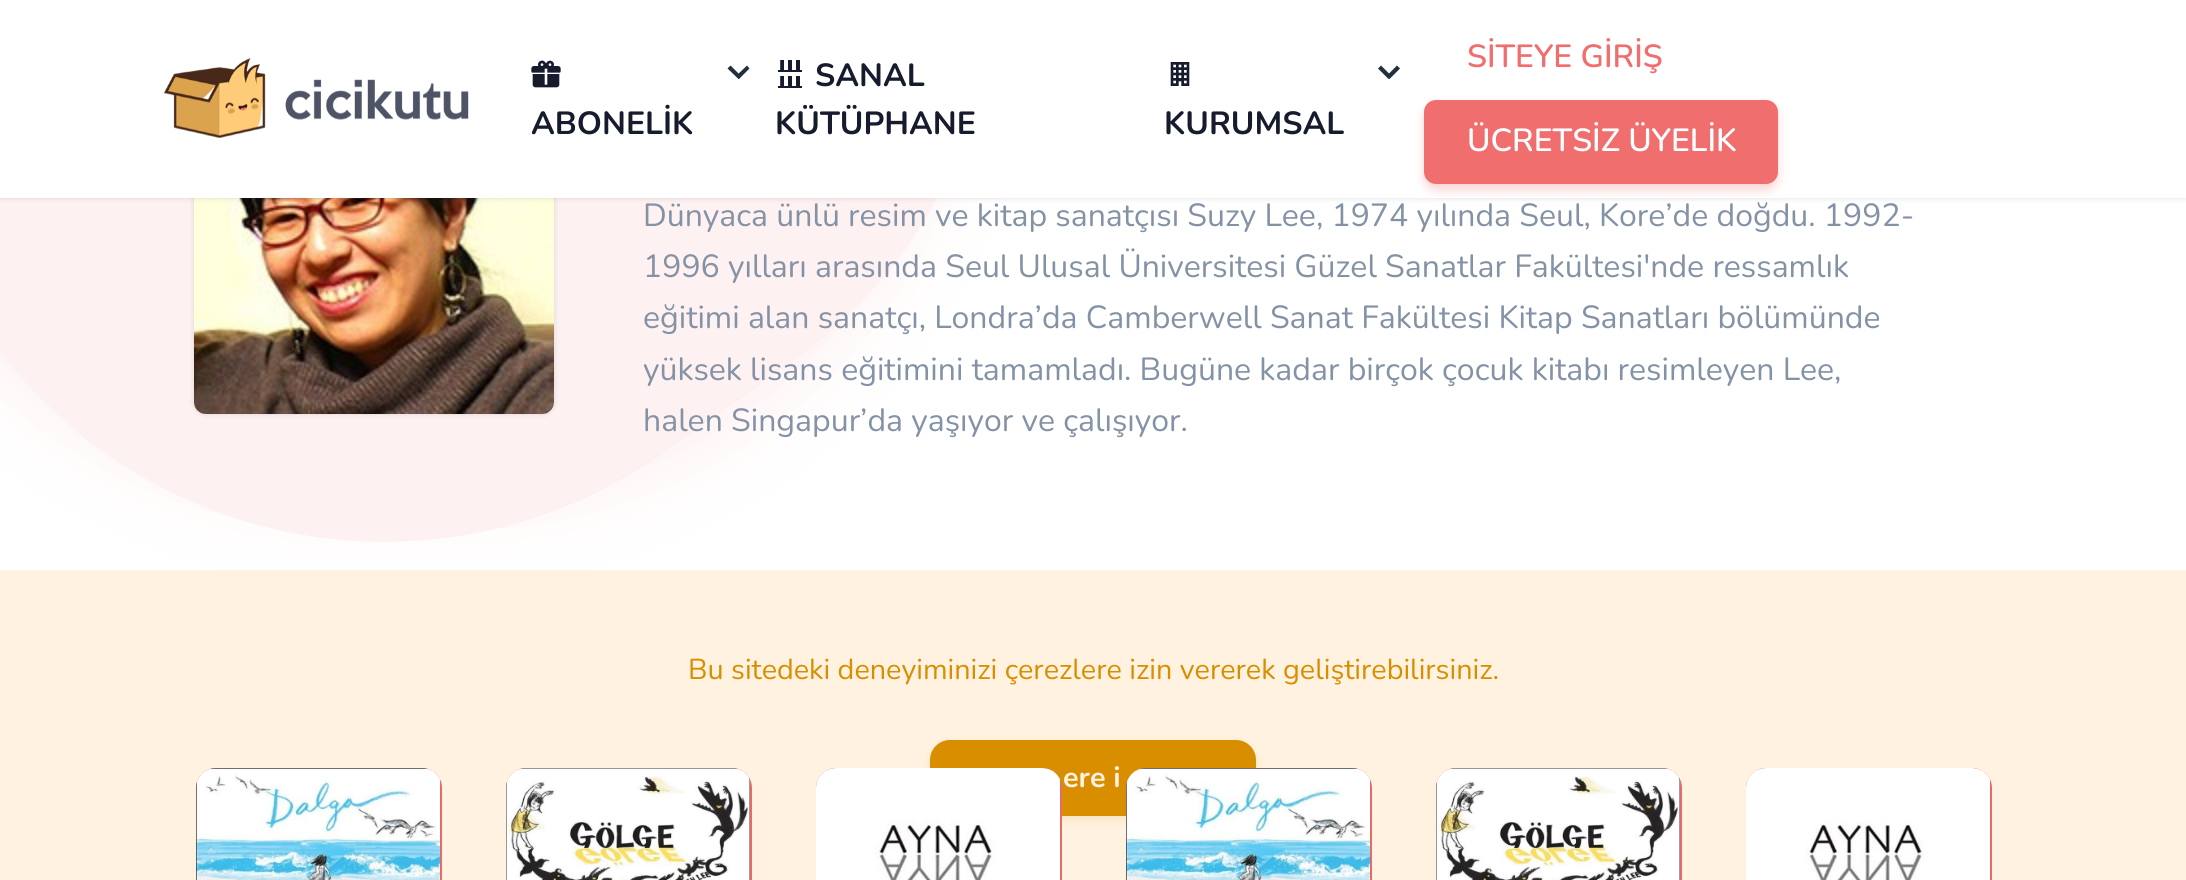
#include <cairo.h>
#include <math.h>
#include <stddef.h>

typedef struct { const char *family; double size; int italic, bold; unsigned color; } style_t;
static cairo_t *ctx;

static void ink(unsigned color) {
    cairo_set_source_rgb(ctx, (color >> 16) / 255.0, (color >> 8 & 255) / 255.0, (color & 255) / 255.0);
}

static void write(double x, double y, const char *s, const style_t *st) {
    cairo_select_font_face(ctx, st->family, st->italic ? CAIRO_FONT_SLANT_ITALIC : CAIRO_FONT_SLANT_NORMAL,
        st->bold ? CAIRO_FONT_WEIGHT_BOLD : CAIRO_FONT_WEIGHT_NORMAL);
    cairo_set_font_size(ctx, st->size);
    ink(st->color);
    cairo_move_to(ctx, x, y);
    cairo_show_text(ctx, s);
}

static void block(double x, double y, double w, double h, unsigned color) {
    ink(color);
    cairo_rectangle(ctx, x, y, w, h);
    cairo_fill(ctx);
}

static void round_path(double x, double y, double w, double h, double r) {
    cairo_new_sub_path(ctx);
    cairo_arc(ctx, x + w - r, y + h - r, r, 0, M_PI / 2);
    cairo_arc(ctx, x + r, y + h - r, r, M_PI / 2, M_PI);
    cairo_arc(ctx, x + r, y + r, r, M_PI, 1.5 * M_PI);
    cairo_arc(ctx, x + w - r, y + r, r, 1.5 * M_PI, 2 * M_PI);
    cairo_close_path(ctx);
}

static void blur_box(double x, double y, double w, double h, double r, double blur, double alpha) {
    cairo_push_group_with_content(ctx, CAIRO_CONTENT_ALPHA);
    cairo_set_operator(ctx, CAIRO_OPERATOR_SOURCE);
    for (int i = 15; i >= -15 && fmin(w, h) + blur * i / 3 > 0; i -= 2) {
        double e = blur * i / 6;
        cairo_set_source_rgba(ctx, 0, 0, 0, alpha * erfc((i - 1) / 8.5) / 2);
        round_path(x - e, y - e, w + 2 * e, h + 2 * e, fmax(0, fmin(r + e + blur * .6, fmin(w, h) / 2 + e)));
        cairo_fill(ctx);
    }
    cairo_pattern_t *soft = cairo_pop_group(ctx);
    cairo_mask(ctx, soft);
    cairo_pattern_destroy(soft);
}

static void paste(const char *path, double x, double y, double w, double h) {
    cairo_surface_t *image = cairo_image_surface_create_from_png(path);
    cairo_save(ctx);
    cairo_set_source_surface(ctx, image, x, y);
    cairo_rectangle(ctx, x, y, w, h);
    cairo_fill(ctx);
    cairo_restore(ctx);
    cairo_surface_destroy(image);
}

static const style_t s1 = {"Nunito", 32, 0, 1, 0x161c2d};
static const style_t s2 = {"Nunito SemiBold", 32, 0, 0, 0xf16e6e};
static const style_t s3 = {"Nunito SemiBold", 32, 0, 0, 0xffffff};
static const style_t s4 = {"Nunito", 32, 0, 0, 0x8492a6};
static const style_t s5 = {"Nunito", 28.8, 0, 0, 0xd98e00};
static const style_t s6 = {"Nunito", 28.8, 0, 1, 0xfff2e0};

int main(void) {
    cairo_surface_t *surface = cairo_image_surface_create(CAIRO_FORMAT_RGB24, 2186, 880);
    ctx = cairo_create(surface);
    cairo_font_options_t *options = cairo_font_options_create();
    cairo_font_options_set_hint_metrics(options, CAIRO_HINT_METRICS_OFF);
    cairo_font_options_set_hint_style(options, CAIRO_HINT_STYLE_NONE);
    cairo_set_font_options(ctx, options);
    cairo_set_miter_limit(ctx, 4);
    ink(0xffffff);
    cairo_paint(ctx);
    cairo_save(ctx);
    cairo_set_fill_rule(ctx, CAIRO_FILL_RULE_EVEN_ODD);
    cairo_new_path(ctx);
    cairo_move_to(ctx, 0, 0);
    cairo_line_to(ctx, 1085, 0);
    cairo_line_to(ctx, 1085, 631);
    cairo_line_to(ctx, 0, 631);
    cairo_close_path(ctx);
    cairo_move_to(ctx, 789.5, 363);
    cairo_line_to(ctx, 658.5, 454.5);
    cairo_curve_to(ctx, 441.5, 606.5, 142, 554, -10, 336.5);
    cairo_line_to(ctx, -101.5, 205.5);
    cairo_curve_to(ctx, -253.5, -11.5, -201, -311, 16.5, -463);
    cairo_line_to(ctx, 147.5, -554.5);
    cairo_curve_to(ctx, 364.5, -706.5, 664, -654, 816, -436.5);
    cairo_line_to(ctx, 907.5, -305.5);
    cairo_curve_to(ctx, 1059.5, -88.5, 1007, 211, 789.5, 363);
    cairo_close_path(ctx);
    cairo_clip(ctx);
    ink(0xf16e6e);
    blur_box(-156, -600, 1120, 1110, 480, 40, 0.1);
    cairo_restore(ctx);
    cairo_set_source_rgba(ctx, 0.945, 0.431, 0.431, 0.1);
    cairo_new_path(ctx);
    cairo_move_to(ctx, 790, 363);
    cairo_line_to(ctx, 659, 455);
    cairo_curve_to(ctx, 442, 607, 142, 554, -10, 337);
    cairo_line_to(ctx, -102, 206);
    cairo_curve_to(ctx, -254, -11, -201, -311, 16, -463);
    cairo_line_to(ctx, 147, -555);
    cairo_curve_to(ctx, 364, -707, 664, -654, 816, -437);
    cairo_line_to(ctx, 908, -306);
    cairo_curve_to(ctx, 1060, -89, 1007, 211, 790, 363);
    cairo_close_path(ctx);
    cairo_fill(ctx);
    ink(0x232f3a);
    blur_box(194, 54, 360, 360, 12, 3, 0.15);
    paste("pic5.png", 194, 198, 360, 216);
    blur_box(0, 0, 2186, 198, 0, 3, 0.15);
    block(0, 0, 2186, 198, 0xffffff);
    paste("pic1.png", 164, 58, 305, 80);
    paste("pic2.png", 531, 60, 30, 28);
    ink(0x232f3a);
    cairo_new_path(ctx);
    cairo_move_to(ctx, 747, 65.5);
    cairo_line_to(ctx, 749.5, 68.5);
    cairo_line_to(ctx, 739, 79);
    cairo_line_to(ctx, 736, 76);
    cairo_close_path(ctx);
    cairo_fill(ctx);
    cairo_new_path(ctx);
    cairo_move_to(ctx, 730.5, 65.5);
    cairo_line_to(ctx, 741, 76);
    cairo_line_to(ctx, 738.5, 79);
    cairo_line_to(ctx, 727.5, 68.5);
    cairo_close_path(ctx);
    cairo_fill(ctx);
    write(531, 134, "ABONELİK", &s1);
    paste("pic3.png", 778, 60, 24, 28);
    write(815, 86, "SANAL", &s1);
    write(775, 134, "KÜTÜPHANE", &s1);
    ink(0x232f3a);
    cairo_new_path(ctx);
    cairo_move_to(ctx, 1397, 65.5);
    cairo_line_to(ctx, 1400, 68.5);
    cairo_line_to(ctx, 1389.5, 79);
    cairo_line_to(ctx, 1386.5, 76);
    cairo_close_path(ctx);
    cairo_fill(ctx);
    cairo_new_path(ctx);
    cairo_move_to(ctx, 1381, 65.5);
    cairo_line_to(ctx, 1391.5, 76);
    cairo_line_to(ctx, 1388.5, 79);
    cairo_line_to(ctx, 1378, 68.5);
    cairo_close_path(ctx);
    cairo_fill(ctx);
    paste("pic4.png", 1170, 62, 20, 24);
    write(1164, 134, "KURUMSAL", &s1);
    write(1467, 67, "SİTEYE GİRİŞ", &s2);
    ink(0xf16e6e);
    blur_box(1424, 106, 354, 84, 12, 5, 0.3);
    ink(0xf16e6e);
    round_path(1425, 101, 352, 82, 11);
    cairo_fill_preserve(ctx);
    cairo_stroke(ctx);
    write(1467, 151, "ÜCRETSİZ ÜYELİK", &s3);
    write(643, 226, "Dünyaca ünlü resim ve kitap sanatçısı Suzy Lee, 1974 yılında Seul, Kore’de doğdu. 1992-", &s4);
    write(643, 277, "1996 yılları arasında Seul Ulusal Üniversitesi Güzel Sanatlar Fakültesi'nde ressamlık", &s4);
    write(643, 328, "eğitimi alan sanatçı, Londra’da Camberwell Sanat Fakültesi Kitap Sanatları bölümünde", &s4);
    write(643, 380, "yüksek lisans eğitimini tamamladı. Bugüne kadar birçok çocuk kitabı resimleyen Lee,", &s4);
    write(643, 431, "halen Singapur’da yaşıyor ve çalışıyor.", &s4);
    block(0, 570, 2186, 310, 0xfff2e0);
    write(688, 679, "Bu sitedeki deneyiminizi çerezlere izin vererek geliştirebilirsiniz.", &s5);
    ink(0xd98e00);
    blur_box(930, 744, 326, 76, 20, 5, 0.15);
    ink(0xd98e00);
    round_path(930, 740, 326, 76, 20);
    cairo_fill(ctx);
    write(1063, 787, "ere i", &s6);
    ink(0xf16e6e);
    cairo_new_path(ctx);
    cairo_move_to(ctx, 216, 768);
    cairo_line_to(ctx, 422, 768);
    cairo_curve_to(ctx, 433, 768, 442, 777, 442, 788);
    cairo_line_to(ctx, 442, 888);
    cairo_curve_to(ctx, 442, 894.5, 436.5, 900, 430, 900);
    cairo_line_to(ctx, 208, 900);
    cairo_curve_to(ctx, 201.5, 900, 196, 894.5, 196, 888);
    cairo_line_to(ctx, 196, 788);
    cairo_curve_to(ctx, 196, 777, 205, 768, 216, 768);
    cairo_close_path(ctx);
    cairo_fill(ctx);
    cairo_save(ctx);
    round_path(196, 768, 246, 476, 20);
    cairo_clip(ctx);
    ink(0x232f3a);
    blur_box(196, 768, 244, 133, 12, 3, 0.15);
    cairo_restore(ctx);
    paste("pic6.png", 196, 768, 244, 112);
    cairo_new_path(ctx);
    cairo_move_to(ctx, 526, 768);
    cairo_line_to(ctx, 732, 768);
    cairo_curve_to(ctx, 743, 768, 752, 777, 752, 788);
    cairo_line_to(ctx, 752, 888);
    cairo_curve_to(ctx, 752, 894.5, 746.5, 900, 740, 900);
    cairo_line_to(ctx, 518, 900);
    cairo_curve_to(ctx, 511.5, 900, 506, 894.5, 506, 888);
    cairo_line_to(ctx, 506, 788);
    cairo_curve_to(ctx, 506, 777, 515, 768, 526, 768);
    cairo_close_path(ctx);
    cairo_fill(ctx);
    cairo_save(ctx);
    round_path(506, 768, 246, 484, 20);
    cairo_clip(ctx);
    ink(0x232f3a);
    blur_box(506, 768, 244, 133, 12, 3, 0.15);
    cairo_restore(ctx);
    paste("pic7.png", 506, 768, 244, 112);
    cairo_new_path(ctx);
    cairo_move_to(ctx, 836, 768);
    cairo_line_to(ctx, 1042, 768);
    cairo_curve_to(ctx, 1053, 768, 1062, 777, 1062, 788);
    cairo_line_to(ctx, 1062, 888);
    cairo_curve_to(ctx, 1062, 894.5, 1056.5, 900, 1050, 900);
    cairo_line_to(ctx, 828, 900);
    cairo_curve_to(ctx, 821.5, 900, 816, 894.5, 816, 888);
    cairo_line_to(ctx, 816, 788);
    cairo_curve_to(ctx, 816, 777, 825, 768, 836, 768);
    cairo_close_path(ctx);
    cairo_fill(ctx);
    cairo_save(ctx);
    round_path(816, 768, 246, 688, 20);
    cairo_clip(ctx);
    ink(0x232f3a);
    blur_box(816, 768, 244, 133, 12, 3, 0.15);
    cairo_restore(ctx);
    paste("pic8.png", 816, 768, 244, 112);
    cairo_new_path(ctx);
    cairo_move_to(ctx, 1146, 768);
    cairo_line_to(ctx, 1352, 768);
    cairo_curve_to(ctx, 1363, 768, 1372, 777, 1372, 788);
    cairo_line_to(ctx, 1372, 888);
    cairo_curve_to(ctx, 1372, 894.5, 1366.5, 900, 1360, 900);
    cairo_line_to(ctx, 1138, 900);
    cairo_curve_to(ctx, 1131.5, 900, 1126, 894.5, 1126, 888);
    cairo_line_to(ctx, 1126, 788);
    cairo_curve_to(ctx, 1126, 777, 1135, 768, 1146, 768);
    cairo_close_path(ctx);
    cairo_fill(ctx);
    cairo_save(ctx);
    round_path(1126, 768, 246, 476, 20);
    cairo_clip(ctx);
    ink(0x232f3a);
    blur_box(1126, 768, 244, 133, 12, 3, 0.15);
    cairo_restore(ctx);
    paste("pic9.png", 1126, 768, 244, 112);
    cairo_new_path(ctx);
    cairo_move_to(ctx, 1456, 768);
    cairo_line_to(ctx, 1662, 768);
    cairo_curve_to(ctx, 1673, 768, 1682, 777, 1682, 788);
    cairo_line_to(ctx, 1682, 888);
    cairo_curve_to(ctx, 1682, 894.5, 1676.5, 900, 1670, 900);
    cairo_line_to(ctx, 1448, 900);
    cairo_curve_to(ctx, 1441.5, 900, 1436, 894.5, 1436, 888);
    cairo_line_to(ctx, 1436, 788);
    cairo_curve_to(ctx, 1436, 777, 1445, 768, 1456, 768);
    cairo_close_path(ctx);
    cairo_fill(ctx);
    cairo_save(ctx);
    round_path(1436, 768, 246, 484, 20);
    cairo_clip(ctx);
    ink(0x232f3a);
    blur_box(1436, 768, 244, 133, 12, 3, 0.15);
    cairo_restore(ctx);
    paste("pic7.png", 1436, 768, 244, 112);
    cairo_new_path(ctx);
    cairo_move_to(ctx, 1766, 768);
    cairo_line_to(ctx, 1972, 768);
    cairo_curve_to(ctx, 1983, 768, 1992, 777, 1992, 788);
    cairo_line_to(ctx, 1992, 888);
    cairo_curve_to(ctx, 1992, 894.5, 1986.5, 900, 1980, 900);
    cairo_line_to(ctx, 1758, 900);
    cairo_curve_to(ctx, 1751.5, 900, 1746, 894.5, 1746, 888);
    cairo_line_to(ctx, 1746, 788);
    cairo_curve_to(ctx, 1746, 777, 1755, 768, 1766, 768);
    cairo_close_path(ctx);
    cairo_fill(ctx);
    cairo_save(ctx);
    round_path(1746, 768, 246, 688, 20);
    cairo_clip(ctx);
    ink(0x232f3a);
    blur_box(1746, 768, 244, 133, 12, 3, 0.15);
    cairo_restore(ctx);
    paste("pic10.png", 1746, 768, 244, 112);
    cairo_surface_write_to_png(surface, "screenshot.png");
    cairo_font_options_destroy(options);
    cairo_destroy(ctx);
    cairo_surface_destroy(surface);
    return 0;
}
